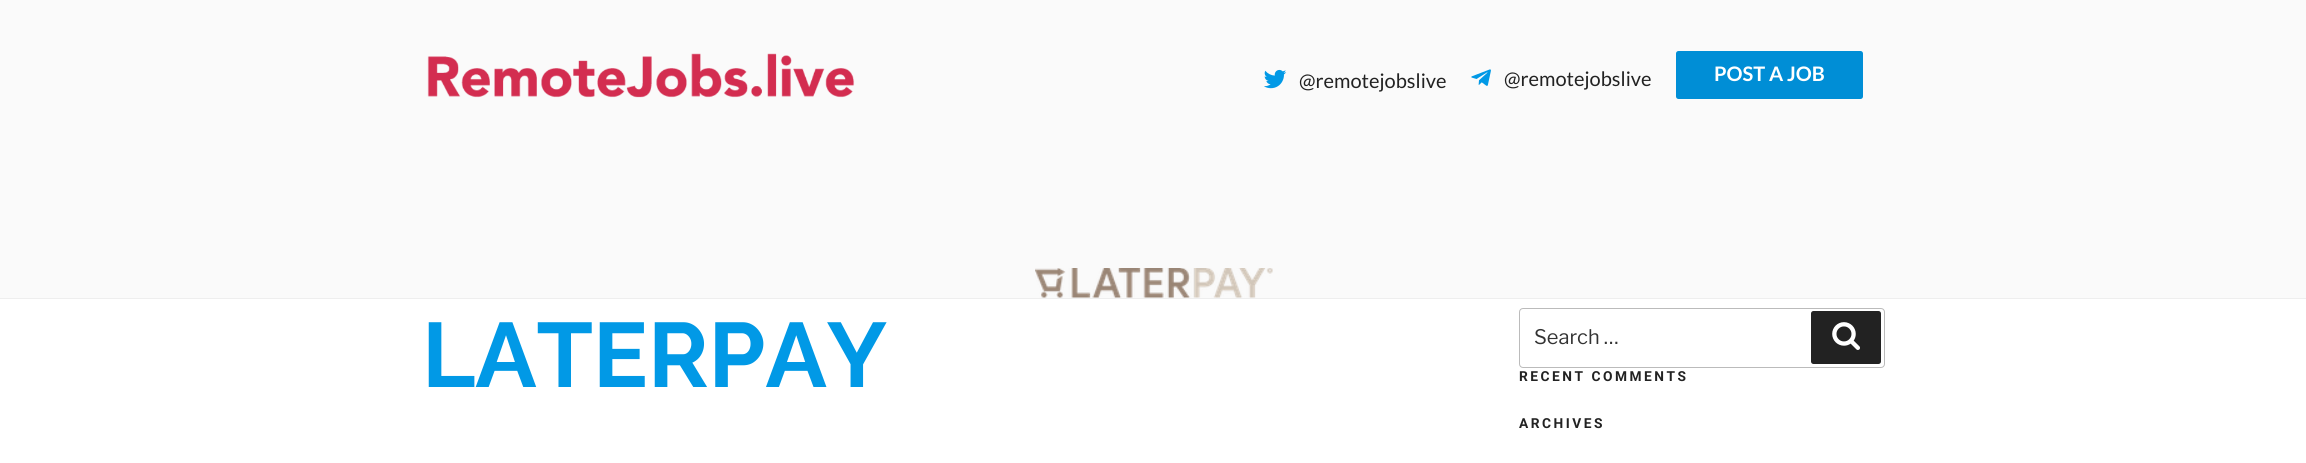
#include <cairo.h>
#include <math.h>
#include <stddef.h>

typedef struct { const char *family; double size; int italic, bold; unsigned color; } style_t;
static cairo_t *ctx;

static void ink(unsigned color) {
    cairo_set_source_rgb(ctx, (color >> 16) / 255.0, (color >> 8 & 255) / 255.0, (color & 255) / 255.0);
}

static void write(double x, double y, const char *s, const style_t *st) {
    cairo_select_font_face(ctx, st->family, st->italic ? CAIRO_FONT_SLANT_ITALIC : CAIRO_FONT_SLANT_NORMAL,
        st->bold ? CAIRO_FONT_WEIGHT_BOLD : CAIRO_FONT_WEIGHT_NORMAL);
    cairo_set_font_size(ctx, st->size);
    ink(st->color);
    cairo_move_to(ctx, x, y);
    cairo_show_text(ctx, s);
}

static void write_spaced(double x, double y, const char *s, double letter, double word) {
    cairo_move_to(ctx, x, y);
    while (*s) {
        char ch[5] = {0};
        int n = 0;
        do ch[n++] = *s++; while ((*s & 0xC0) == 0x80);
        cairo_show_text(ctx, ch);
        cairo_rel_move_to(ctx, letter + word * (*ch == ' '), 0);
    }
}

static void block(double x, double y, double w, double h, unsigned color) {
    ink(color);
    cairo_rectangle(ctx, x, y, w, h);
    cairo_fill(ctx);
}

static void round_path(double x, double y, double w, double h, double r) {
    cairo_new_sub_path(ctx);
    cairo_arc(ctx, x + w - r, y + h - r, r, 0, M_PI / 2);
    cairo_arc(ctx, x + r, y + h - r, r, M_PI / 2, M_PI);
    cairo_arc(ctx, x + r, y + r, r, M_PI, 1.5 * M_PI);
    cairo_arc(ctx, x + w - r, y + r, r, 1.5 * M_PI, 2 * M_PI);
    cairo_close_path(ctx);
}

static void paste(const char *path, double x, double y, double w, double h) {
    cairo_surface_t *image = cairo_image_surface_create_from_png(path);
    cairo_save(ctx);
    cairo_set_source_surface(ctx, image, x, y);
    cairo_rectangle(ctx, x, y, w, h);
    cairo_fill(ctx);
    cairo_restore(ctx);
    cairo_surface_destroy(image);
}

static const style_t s1 = {"Lato", 20, 0, 0, 0x222222};
static const style_t s2 = {"Lato", 20, 0, 1, 0xffffff};
static const style_t s3 = {"Raleway", 91.25, 0, 1, 0x0199e6};
static const style_t s4 = {"Libre Franklin", 20, 0, 0, 0x333333};

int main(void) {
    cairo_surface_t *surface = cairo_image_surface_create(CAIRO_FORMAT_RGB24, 2306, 463);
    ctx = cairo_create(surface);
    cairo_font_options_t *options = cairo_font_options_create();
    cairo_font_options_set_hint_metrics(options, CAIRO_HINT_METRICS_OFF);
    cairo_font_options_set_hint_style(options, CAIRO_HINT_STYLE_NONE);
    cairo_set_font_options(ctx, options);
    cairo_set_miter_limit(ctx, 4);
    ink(0xffffff);
    cairo_paint(ctx);
    block(0, 0, 2306, 298, 0xfafafa);
    block(0, 298, 2306, 1, 0xeeeeee);
    paste("pic1.png", 1035, 268, 238, 30);
    paste("pic2.png", 427, 53, 428, 45);
    paste("pic3.png", 1264, 69, 23, 20);
    write(1299, 88, "@remotejobslive", &s1);
    paste("pic4.png", 1471, 69, 20, 17);
    write(1504, 86, "@remotejobslive", &s1);
    ink(0x008ed6);
    round_path(1676, 51, 187, 48, 2.5);
    cairo_fill(ctx);
    write(1714, 81, "POST A JOB", &s2);
    write(422, 387, "LATERPAY", &s3);
    round_path(1519.5, 308.5, 365, 59, 3.5);
    ink(0xbbbbbb);
    cairo_set_line_width(ctx, 1);
    cairo_stroke(ctx);
    write(1534, 344, "Search …", &s4);
    ink(0x222222);
    round_path(1811, 311, 70, 53, 2.5);
    cairo_fill(ctx);
    paste("pic5.png", 1832, 322, 28, 28);
    cairo_select_font_face(ctx, "Roboto", CAIRO_FONT_SLANT_NORMAL, CAIRO_FONT_WEIGHT_BOLD);
    cairo_set_font_size(ctx, 13.75);
    write_spaced(1519, 381, "RECENT COMMENTS", 2.5, 0);
    write_spaced(1519, 428, "ARCHIVES", 2.5, 0);
    cairo_surface_write_to_png(surface, "screenshot.png");
    cairo_font_options_destroy(options);
    cairo_destroy(ctx);
    cairo_surface_destroy(surface);
    return 0;
}
